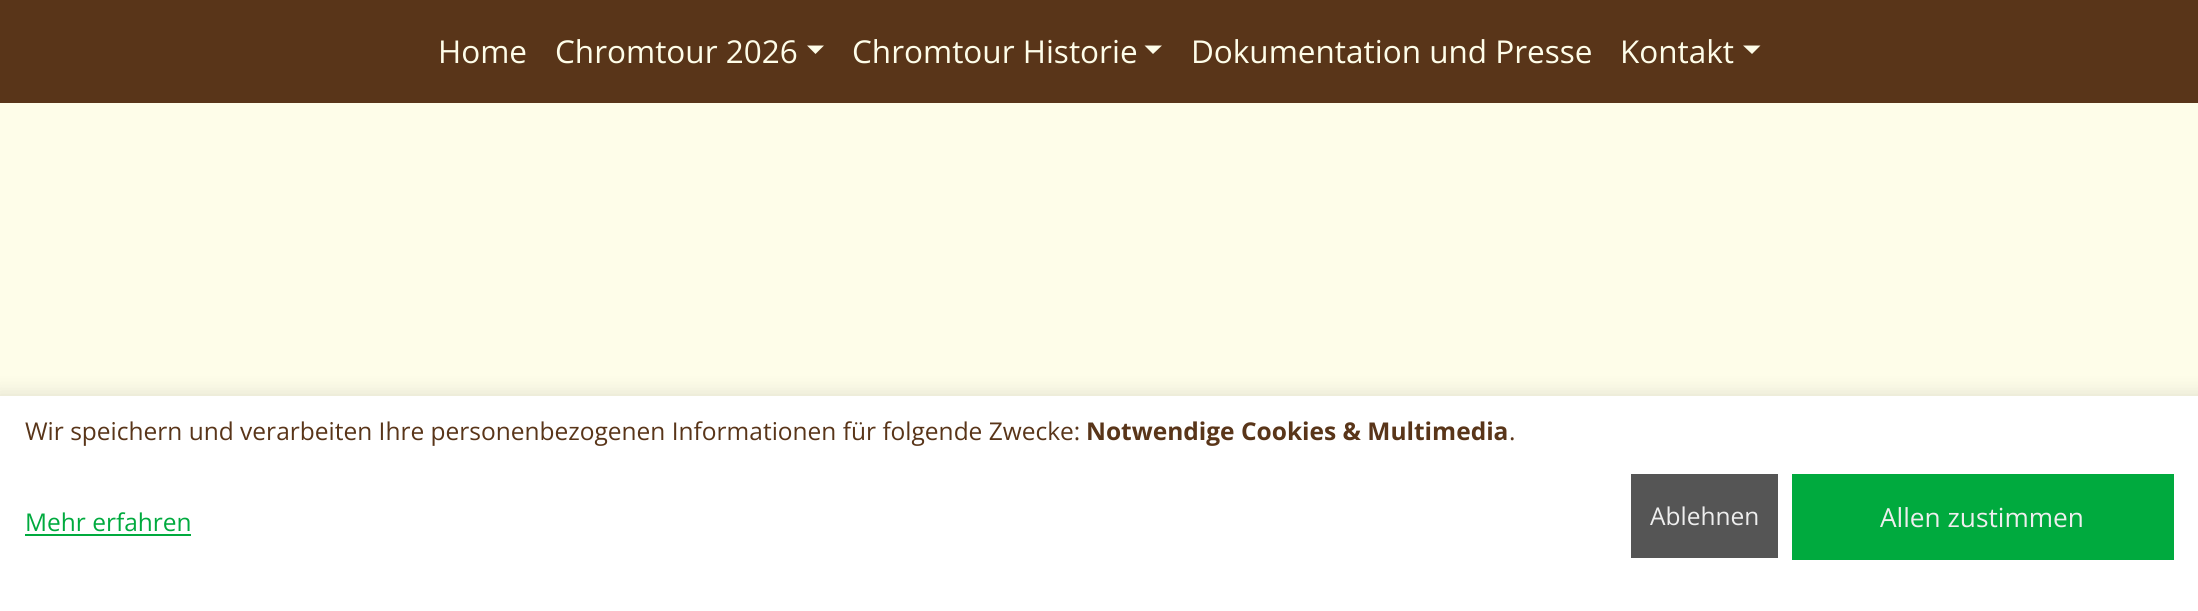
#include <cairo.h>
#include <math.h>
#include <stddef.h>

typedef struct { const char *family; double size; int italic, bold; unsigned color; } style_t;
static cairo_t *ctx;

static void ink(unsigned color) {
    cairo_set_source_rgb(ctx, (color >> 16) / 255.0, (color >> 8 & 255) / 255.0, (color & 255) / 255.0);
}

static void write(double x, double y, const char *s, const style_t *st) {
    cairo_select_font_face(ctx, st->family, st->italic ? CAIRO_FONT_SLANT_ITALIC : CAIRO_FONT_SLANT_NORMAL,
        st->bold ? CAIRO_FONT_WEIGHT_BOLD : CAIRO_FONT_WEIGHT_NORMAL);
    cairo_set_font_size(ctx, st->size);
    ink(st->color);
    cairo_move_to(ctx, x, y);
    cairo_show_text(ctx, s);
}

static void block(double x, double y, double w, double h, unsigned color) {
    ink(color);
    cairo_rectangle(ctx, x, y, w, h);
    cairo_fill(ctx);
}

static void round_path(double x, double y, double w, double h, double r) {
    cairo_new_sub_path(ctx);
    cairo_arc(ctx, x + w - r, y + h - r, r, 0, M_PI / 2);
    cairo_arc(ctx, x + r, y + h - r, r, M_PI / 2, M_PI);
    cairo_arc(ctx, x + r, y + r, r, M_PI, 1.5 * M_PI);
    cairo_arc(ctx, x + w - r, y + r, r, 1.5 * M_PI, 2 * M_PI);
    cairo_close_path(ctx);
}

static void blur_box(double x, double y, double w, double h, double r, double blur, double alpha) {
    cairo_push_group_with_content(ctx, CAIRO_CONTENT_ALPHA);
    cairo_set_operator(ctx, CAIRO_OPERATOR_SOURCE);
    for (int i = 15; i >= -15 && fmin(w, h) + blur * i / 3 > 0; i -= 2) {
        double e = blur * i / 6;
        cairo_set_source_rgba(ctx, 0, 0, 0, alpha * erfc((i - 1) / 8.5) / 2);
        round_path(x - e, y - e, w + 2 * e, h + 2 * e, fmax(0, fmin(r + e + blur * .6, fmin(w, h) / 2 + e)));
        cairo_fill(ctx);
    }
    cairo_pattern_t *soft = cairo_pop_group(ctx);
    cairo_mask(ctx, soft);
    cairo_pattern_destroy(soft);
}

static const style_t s1 = {"Open Sans", 31.5, 0, 0, 0xfefde9};
static const style_t s2 = {"Open Sans", 24.5, 0, 0, 0x593519};
static const style_t s3 = {"Open Sans", 24.5, 0, 1, 0x593519};
static const style_t s4 = {"Open Sans", 24.5, 0, 0, 0x00aa3e};
static const style_t s5 = {"Open Sans", 24.5, 0, 0, 0xeeeeee};
static const style_t s6 = {"Open Sans", 26.25, 0, 0, 0xeeeeee};

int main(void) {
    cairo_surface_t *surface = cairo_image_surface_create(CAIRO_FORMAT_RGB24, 2198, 611);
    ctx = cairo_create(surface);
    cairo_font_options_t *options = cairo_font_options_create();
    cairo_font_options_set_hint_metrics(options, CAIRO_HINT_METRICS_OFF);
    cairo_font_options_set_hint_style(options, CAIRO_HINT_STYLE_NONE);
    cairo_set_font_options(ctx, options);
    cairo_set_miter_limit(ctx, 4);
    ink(0xfefde9);
    cairo_paint(ctx);
    block(0, 0, 2198, 103, 0x593519);
    write(438, 63, "Home", &s1);
    write(555, 63, "Chromtour 2026", &s1);
    cairo_new_path(ctx);
    cairo_move_to(ctx, 807, 45.5);
    cairo_line_to(ctx, 824, 45.5);
    cairo_line_to(ctx, 815.5, 54);
    cairo_close_path(ctx);
    cairo_fill(ctx);
    write(852, 63, "Chromtour Historie", &s1);
    cairo_new_path(ctx);
    cairo_move_to(ctx, 1144.5, 45.5);
    cairo_line_to(ctx, 1162, 45.5);
    cairo_line_to(ctx, 1153, 54);
    cairo_close_path(ctx);
    cairo_fill(ctx);
    write(1191, 63, "Dokumentation und Presse", &s1);
    write(1620, 63, "Kontakt", &s1);
    cairo_new_path(ctx);
    cairo_move_to(ctx, 1743, 45.5);
    cairo_line_to(ctx, 1760.5, 45.5);
    cairo_line_to(ctx, 1752, 54);
    cairo_close_path(ctx);
    cairo_fill(ctx);
    ink(0x000000);
    blur_box(-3, 392, 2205, 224, 0, 9, 0.1);
    block(0, 396, 2198, 215, 0xffffff);
    write(25, 440, "Wir speichern und verarbeiten Ihre personenbezogenen Informationen für folgende Zwecke:", &s2);
    write(1086, 440, "Notwendige Cookies & Multimedia", &s3);
    write(1509, 440, ".", &s2);
    write(25, 531, "Mehr erfahren", &s4);
    block(25, 534, 166, 2, 0x00aa3e);
    block(1631, 474, 147, 84, 0x555555);
    write(1650, 525, "Ablehnen", &s5);
    block(1792, 474, 382, 86, 0x00aa3e);
    write(1880, 527, "Allen zustimmen", &s6);
    cairo_surface_write_to_png(surface, "screenshot.png");
    cairo_font_options_destroy(options);
    cairo_destroy(ctx);
    cairo_surface_destroy(surface);
    return 0;
}
